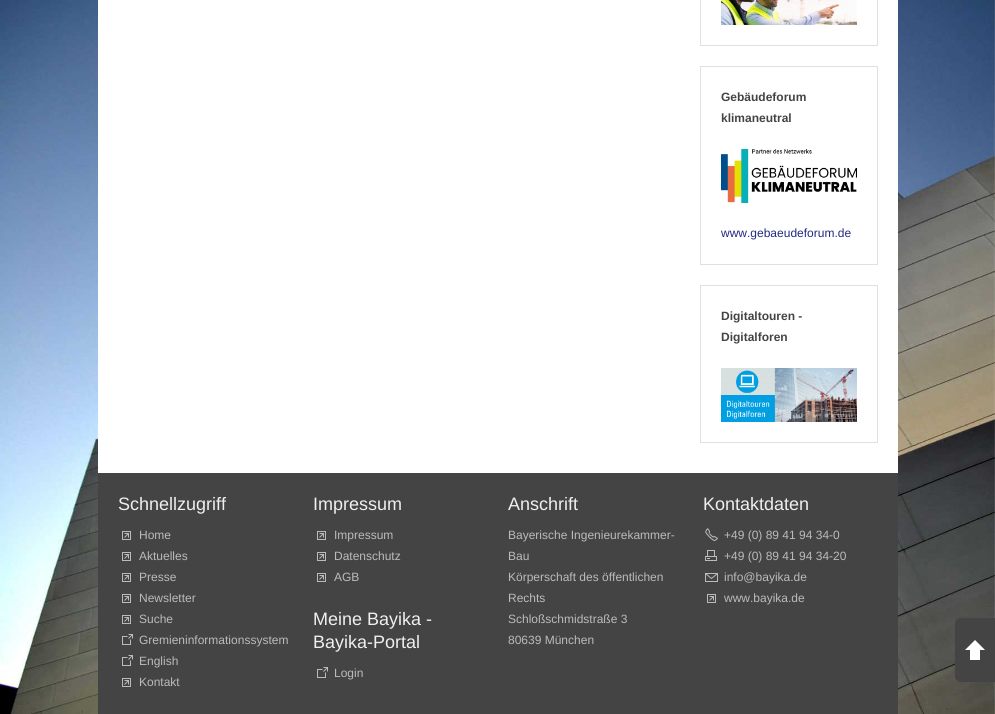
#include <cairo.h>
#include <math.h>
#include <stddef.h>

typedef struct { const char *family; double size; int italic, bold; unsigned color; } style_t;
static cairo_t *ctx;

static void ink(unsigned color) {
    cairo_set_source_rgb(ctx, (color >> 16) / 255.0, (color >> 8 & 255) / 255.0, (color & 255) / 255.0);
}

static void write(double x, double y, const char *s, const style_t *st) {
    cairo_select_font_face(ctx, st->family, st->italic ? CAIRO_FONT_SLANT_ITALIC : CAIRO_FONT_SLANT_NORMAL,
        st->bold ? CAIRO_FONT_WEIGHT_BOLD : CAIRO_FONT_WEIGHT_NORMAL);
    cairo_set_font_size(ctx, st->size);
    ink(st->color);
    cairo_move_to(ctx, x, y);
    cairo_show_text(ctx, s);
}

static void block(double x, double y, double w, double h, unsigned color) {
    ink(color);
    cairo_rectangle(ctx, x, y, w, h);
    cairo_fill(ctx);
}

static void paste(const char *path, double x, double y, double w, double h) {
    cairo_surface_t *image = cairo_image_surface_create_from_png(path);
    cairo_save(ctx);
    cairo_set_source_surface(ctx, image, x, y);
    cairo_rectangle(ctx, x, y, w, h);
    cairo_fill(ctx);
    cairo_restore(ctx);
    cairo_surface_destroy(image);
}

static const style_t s1 = {"Liberation Sans", 12, 0, 1, 0x444444};
static const style_t s2 = {"Liberation Sans", 12, 0, 0, 0x212b82};
static const style_t s3 = {"Liberation Sans", 18, 0, 0, 0xefefef};
static const style_t s4 = {"Liberation Sans", 12, 0, 0, 0xbbbbbb};

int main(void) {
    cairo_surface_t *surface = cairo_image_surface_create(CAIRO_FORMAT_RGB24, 995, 714);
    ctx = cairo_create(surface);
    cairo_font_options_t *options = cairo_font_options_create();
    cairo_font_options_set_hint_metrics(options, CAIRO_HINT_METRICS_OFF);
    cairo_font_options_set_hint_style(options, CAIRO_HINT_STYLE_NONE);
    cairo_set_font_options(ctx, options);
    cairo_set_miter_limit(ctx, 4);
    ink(0xffffff);
    cairo_paint(ctx);
    paste("pic1.png", 0, 0, 995, 714);
    block(98, 0, 800, 473, 0xffffff);
    cairo_rectangle(ctx, 700.5, -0.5, 177, 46);
    ink(0xe0e0e0);
    cairo_set_line_width(ctx, 1);
    cairo_stroke(ctx);
    paste("pic2.png", 721, 0, 136, 25);
    cairo_rectangle(ctx, 700.5, 66.5, 177, 198);
    cairo_stroke(ctx);
    write(721, 101, "Gebäudeforum", &s1);
    write(721, 122, "klimaneutral", &s1);
    paste("pic3.png", 721, 149, 136, 54);
    write(721, 237, "www.gebaeudeforum.de", &s2);
    cairo_rectangle(ctx, 700.5, 285.5, 177, 157);
    ink(0xe0e0e0);
    cairo_stroke(ctx);
    write(721, 320, "Digitaltouren -", &s1);
    write(721, 341, "Digitalforen", &s1);
    paste("pic4.png", 721, 368, 136, 54);
    block(98, 473, 800, 241, 0x444444);
    write(118, 510, "Schnellzugriff", &s3);
    paste("pic5.png", 122, 531, 9, 9);
    write(139, 539, "Home", &s4);
    paste("pic5.png", 122, 552, 9, 9);
    write(139, 560, "Aktuelles", &s4);
    paste("pic5.png", 122, 573, 9, 9);
    write(139, 581, "Presse", &s4);
    paste("pic5.png", 122, 594, 9, 9);
    write(139, 602, "Newsletter", &s4);
    paste("pic5.png", 122, 615, 9, 9);
    write(139, 623, "Suche", &s4);
    paste("pic6.png", 122, 634, 11, 11);
    write(139, 644, "Gremieninformationssystem", &s4);
    paste("pic6.png", 122, 655, 11, 11);
    write(139, 665, "English", &s4);
    paste("pic5.png", 122, 678, 9, 9);
    write(139, 686, "Kontakt", &s4);
    write(313, 510, "Impressum", &s3);
    paste("pic5.png", 317, 531, 9, 9);
    write(334, 539, "Impressum", &s4);
    paste("pic5.png", 317, 552, 9, 9);
    write(334, 560, "Datenschutz", &s4);
    paste("pic5.png", 317, 573, 9, 9);
    write(334, 581, "AGB", &s4);
    write(313, 625, "Meine Bayika -", &s3);
    write(313, 648, "Bayika-Portal", &s3);
    paste("pic6.png", 317, 667, 11, 11);
    write(334, 677, "Login", &s4);
    write(508, 510, "Anschrift", &s3);
    write(508, 539, "Bayerische Ingenieurekammer-", &s4);
    write(508, 560, "Bau", &s4);
    write(508, 581, "Körperschaft des öffentlichen", &s4);
    write(508, 602, "Rechts", &s4);
    write(508, 623, "Schloßschmidstraße 3", &s4);
    write(508, 644, "80639 München", &s4);
    write(703, 510, "Kontaktdaten", &s3);
    paste("pic7.png", 705, 528, 13, 13);
    write(724, 539, "+49 (0) 89 41 94 34-0", &s4);
    paste("pic8.png", 705, 550, 12, 11);
    write(724, 560, "+49 (0) 89 41 94 34-20", &s4);
    paste("pic9.png", 705, 573, 13, 9);
    write(724, 581, "info@bayika.de", &s4);
    paste("pic5.png", 707, 594, 9, 9);
    write(724, 602, "www.bayika.de", &s4);
    ink(0x444444);
    cairo_new_path(ctx);
    cairo_move_to(ctx, 961, 618);
    cairo_line_to(ctx, 995, 618);
    cairo_line_to(ctx, 995, 682);
    cairo_line_to(ctx, 961, 682);
    cairo_curve_to(ctx, 957.5, 682, 955, 679.5, 955, 676);
    cairo_line_to(ctx, 955, 624);
    cairo_curve_to(ctx, 955, 620.5, 957.5, 618, 961, 618);
    cairo_close_path(ctx);
    cairo_fill(ctx);
    ink(0xffffff);
    cairo_new_path(ctx);
    cairo_move_to(ctx, 985, 650);
    cairo_line_to(ctx, 965, 650);
    cairo_line_to(ctx, 975, 640);
    cairo_close_path(ctx);
    cairo_fill(ctx);
    block(970, 650, 10, 10, 0xffffff);
    cairo_surface_write_to_png(surface, "screenshot.png");
    cairo_font_options_destroy(options);
    cairo_destroy(ctx);
    cairo_surface_destroy(surface);
    return 0;
}
